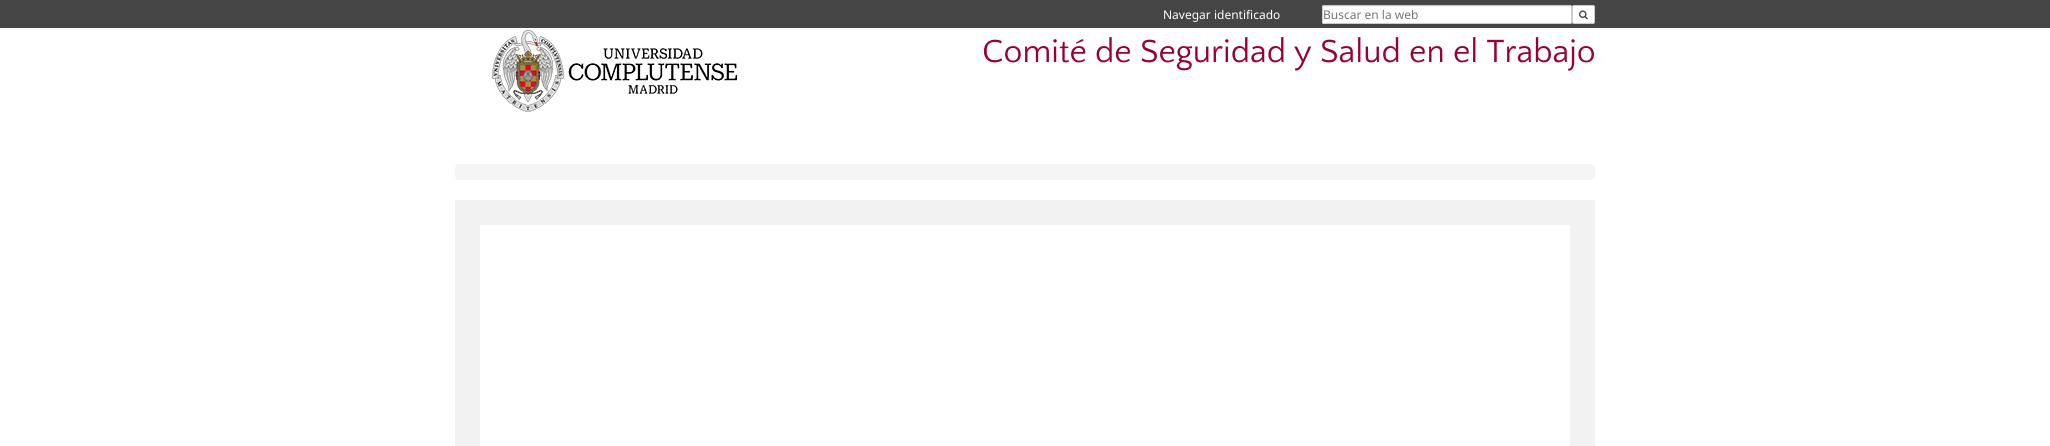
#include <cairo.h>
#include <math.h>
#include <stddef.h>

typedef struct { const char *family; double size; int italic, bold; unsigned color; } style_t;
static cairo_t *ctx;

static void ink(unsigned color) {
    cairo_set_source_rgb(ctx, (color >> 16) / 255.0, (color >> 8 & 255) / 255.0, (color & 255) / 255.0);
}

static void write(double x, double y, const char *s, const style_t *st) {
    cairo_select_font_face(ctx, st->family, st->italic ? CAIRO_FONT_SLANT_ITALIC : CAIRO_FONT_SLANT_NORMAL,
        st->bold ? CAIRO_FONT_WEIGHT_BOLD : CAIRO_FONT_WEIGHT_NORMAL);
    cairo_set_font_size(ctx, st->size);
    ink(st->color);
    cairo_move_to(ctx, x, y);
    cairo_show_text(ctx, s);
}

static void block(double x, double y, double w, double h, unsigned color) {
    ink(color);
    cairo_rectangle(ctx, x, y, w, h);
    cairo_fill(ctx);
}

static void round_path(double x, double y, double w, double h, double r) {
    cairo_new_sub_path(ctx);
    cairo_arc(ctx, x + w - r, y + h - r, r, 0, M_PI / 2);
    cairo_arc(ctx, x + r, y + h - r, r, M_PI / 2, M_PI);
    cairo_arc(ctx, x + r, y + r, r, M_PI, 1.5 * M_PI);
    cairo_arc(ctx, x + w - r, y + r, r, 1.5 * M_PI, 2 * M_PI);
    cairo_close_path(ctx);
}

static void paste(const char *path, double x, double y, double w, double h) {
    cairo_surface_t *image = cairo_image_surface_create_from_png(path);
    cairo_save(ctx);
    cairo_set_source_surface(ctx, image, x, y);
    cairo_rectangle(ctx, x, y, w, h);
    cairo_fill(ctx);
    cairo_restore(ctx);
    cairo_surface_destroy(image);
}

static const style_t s1 = {"Noto Sans", 12, 0, 0, 0xffffff};
static const style_t s2 = {"Noto Sans", 12, 0, 0, 0x757575};
static const style_t s3 = {"Quattrocento Sans", 33.6, 0, 0, 0x990033};

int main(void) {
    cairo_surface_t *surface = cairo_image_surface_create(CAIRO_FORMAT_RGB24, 2050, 446);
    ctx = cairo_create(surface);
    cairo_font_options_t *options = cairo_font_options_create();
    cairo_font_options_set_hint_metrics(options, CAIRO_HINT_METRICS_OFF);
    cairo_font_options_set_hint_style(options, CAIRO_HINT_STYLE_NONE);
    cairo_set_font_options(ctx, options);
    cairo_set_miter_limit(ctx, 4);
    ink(0xffffff);
    cairo_paint(ctx);
    block(0, 0, 2050, 28, 0x454545);
    write(1163, 19, "Navegar identificado", &s1);
    round_path(1322, 5, 250, 19, 2);
    cairo_fill(ctx);
    ink(0xececec);
    cairo_set_fill_rule(ctx, CAIRO_FILL_RULE_EVEN_ODD);
    cairo_new_path(ctx);
    cairo_move_to(ctx, 1324, 7);
    cairo_line_to(ctx, 1570, 7);
    cairo_line_to(ctx, 1571, 8);
    cairo_line_to(ctx, 1571, 6);
    cairo_line_to(ctx, 1324, 6);
    cairo_curve_to(ctx, 1323, 6, 1323, 7, 1323, 8);
    cairo_close_path(ctx);
    cairo_move_to(ctx, 1571, 22);
    cairo_line_to(ctx, 1571, 22);
    cairo_close_path(ctx);
    cairo_fill(ctx);
    round_path(1322.5, 5.5, 249, 18, 1.5);
    ink(0xcccccc);
    cairo_set_line_width(ctx, 1);
    cairo_stroke(ctx);
    write(1323, 19, "Buscar en la web", &s2);
    ink(0xffffff);
    round_path(1572.5, 5.5, 22, 18, 1.5);
    cairo_fill_preserve(ctx);
    ink(0xcccccc);
    cairo_stroke(ctx);
    paste("pic1.png", 1579, 10, 9, 10);
    paste("pic2.png", 492, 30, 245, 82);
    write(982, 62, "Comité de Seguridad y Salud en el Trabajo", &s3);
    ink(0xf5f5f5);
    round_path(455, 164, 1140, 16, 4);
    cairo_fill(ctx);
    block(455, 200, 1140, 246, 0xf2f2f2);
    block(480, 225, 1090, 221, 0xffffff);
    cairo_surface_write_to_png(surface, "screenshot.png");
    cairo_font_options_destroy(options);
    cairo_destroy(ctx);
    cairo_surface_destroy(surface);
    return 0;
}
